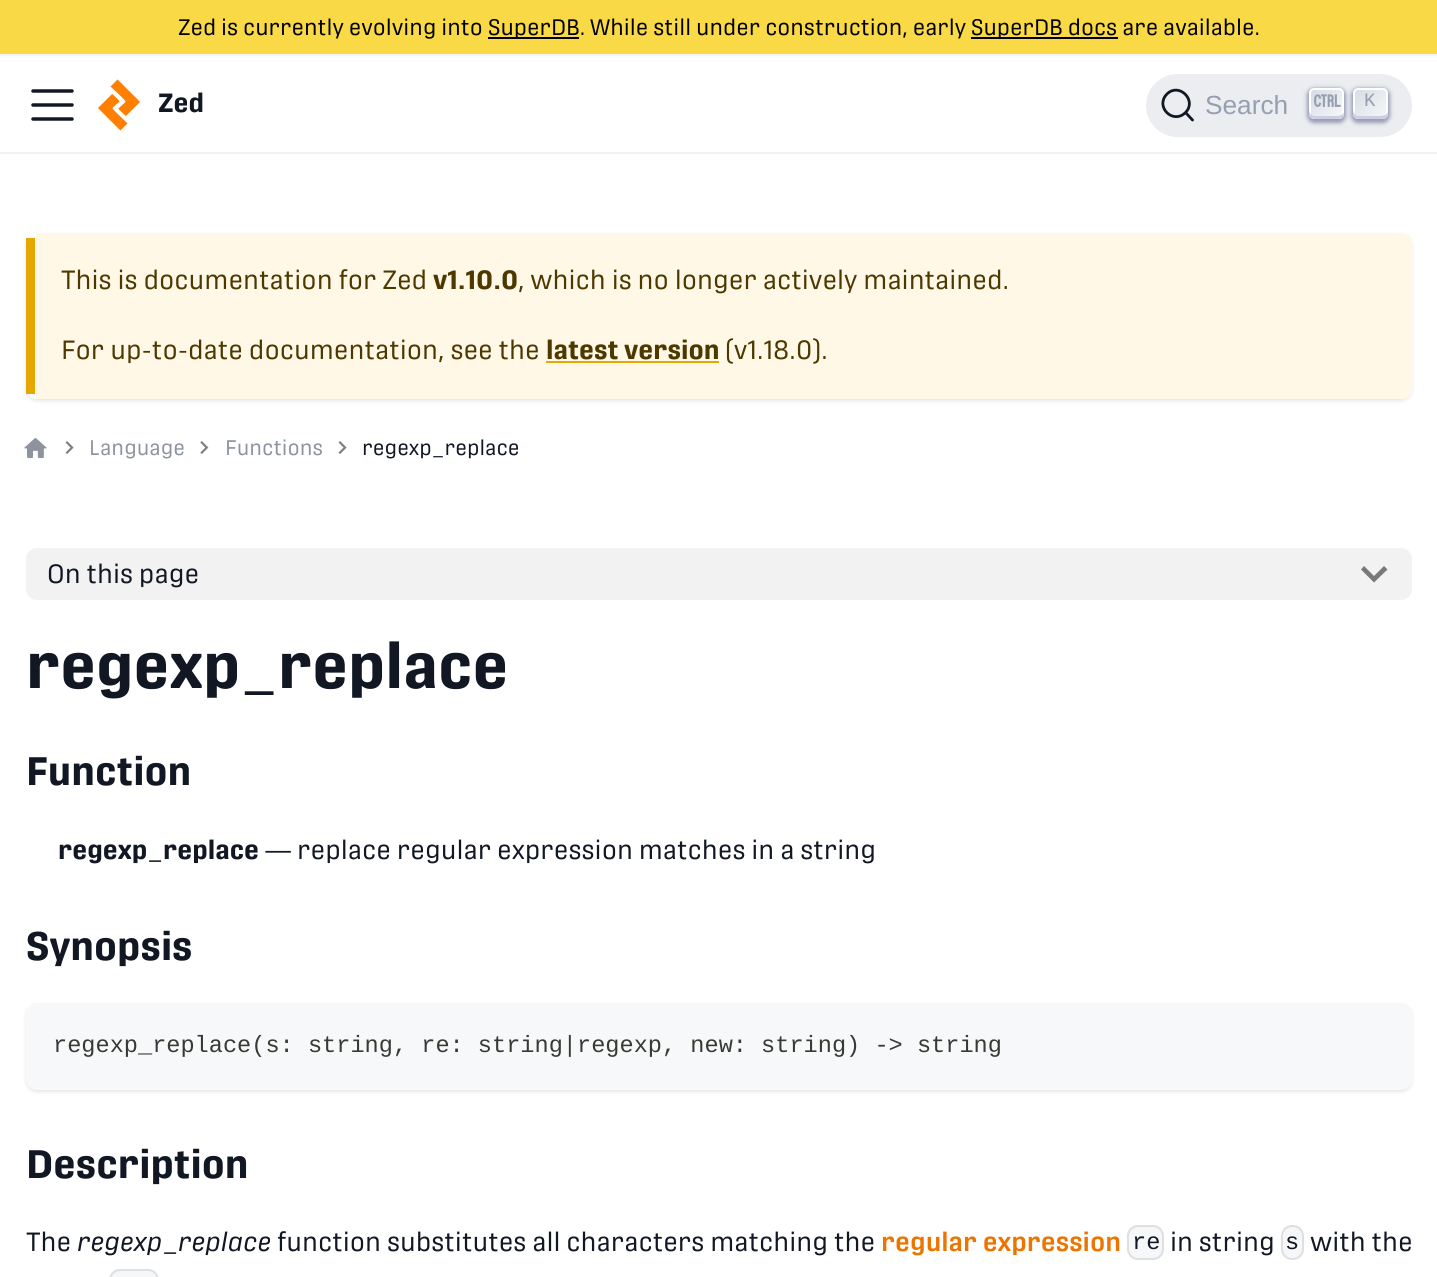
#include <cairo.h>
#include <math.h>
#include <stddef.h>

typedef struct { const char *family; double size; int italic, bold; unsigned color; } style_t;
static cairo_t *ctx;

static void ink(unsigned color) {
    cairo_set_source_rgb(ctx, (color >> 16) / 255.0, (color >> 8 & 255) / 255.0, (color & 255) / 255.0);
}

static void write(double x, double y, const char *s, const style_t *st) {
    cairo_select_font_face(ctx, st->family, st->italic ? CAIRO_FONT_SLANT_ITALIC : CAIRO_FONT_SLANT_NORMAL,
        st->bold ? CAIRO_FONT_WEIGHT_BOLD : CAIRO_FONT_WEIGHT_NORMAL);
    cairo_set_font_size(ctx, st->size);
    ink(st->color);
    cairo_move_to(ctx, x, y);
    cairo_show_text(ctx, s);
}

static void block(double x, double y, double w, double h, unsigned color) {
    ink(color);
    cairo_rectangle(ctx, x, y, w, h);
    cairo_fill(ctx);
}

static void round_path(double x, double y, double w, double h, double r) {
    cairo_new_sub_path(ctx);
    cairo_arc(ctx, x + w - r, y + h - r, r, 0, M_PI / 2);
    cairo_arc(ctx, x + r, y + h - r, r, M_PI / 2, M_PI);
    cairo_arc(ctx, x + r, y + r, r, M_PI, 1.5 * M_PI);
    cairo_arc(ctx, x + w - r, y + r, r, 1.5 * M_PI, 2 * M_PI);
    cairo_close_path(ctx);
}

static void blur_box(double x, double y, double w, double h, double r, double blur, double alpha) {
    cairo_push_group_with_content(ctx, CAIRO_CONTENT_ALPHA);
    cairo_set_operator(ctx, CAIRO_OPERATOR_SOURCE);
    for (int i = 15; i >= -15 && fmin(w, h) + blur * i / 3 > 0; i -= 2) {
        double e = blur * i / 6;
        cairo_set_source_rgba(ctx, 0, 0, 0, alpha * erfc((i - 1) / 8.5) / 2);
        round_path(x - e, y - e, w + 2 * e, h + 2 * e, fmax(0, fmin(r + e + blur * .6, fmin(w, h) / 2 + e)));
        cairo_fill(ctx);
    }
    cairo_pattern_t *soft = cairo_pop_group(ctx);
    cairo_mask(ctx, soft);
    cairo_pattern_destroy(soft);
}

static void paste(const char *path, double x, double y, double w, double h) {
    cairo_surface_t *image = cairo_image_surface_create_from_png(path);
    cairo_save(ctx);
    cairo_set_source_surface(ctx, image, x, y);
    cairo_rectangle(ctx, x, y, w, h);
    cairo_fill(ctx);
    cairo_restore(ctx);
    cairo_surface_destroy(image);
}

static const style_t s1 = {"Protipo", 22.3, 0, 0, 0x000000};
static const style_t s2 = {"Protipo", 26.25, 0, 1, 0x111824};
static const style_t s3 = {"Liberation Sans", 26.25, 0, 0, 0x969faf};
static const style_t s4 = {"Liberation Mono", 19, 0, 0, 0x969faf};
static const style_t s5 = {"Protipo", 26.25, 0, 0, 0x4d3800};
static const style_t s6 = {"Protipo", 26.25, 0, 1, 0x4d3800};
static const style_t s7 = {"Protipo", 21, 0, 0, 0x8d949e};
static const style_t s8 = {"Protipo", 21, 0, 0, 0x111824};
static const style_t s9 = {"Protipo", 26.25, 0, 0, 0x111824};
static const style_t s10 = {"Protipo", 63, 0, 1, 0x111824};
static const style_t s11 = {"Protipo", 39.5, 0, 1, 0x111824};
static const style_t s12 = {"Liberation Mono", 23.6, 0, 0, 0x393a34};
static const style_t s13 = {"Protipo", 26.25, 1, 0, 0x111824};
static const style_t s14 = {"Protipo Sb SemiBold", 26.25, 0, 0, 0xeb7500};
static const style_t s15 = {"Liberation Mono", 23.6, 0, 0, 0x111824};

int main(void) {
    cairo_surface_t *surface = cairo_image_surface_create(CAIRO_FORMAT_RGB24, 1437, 1277);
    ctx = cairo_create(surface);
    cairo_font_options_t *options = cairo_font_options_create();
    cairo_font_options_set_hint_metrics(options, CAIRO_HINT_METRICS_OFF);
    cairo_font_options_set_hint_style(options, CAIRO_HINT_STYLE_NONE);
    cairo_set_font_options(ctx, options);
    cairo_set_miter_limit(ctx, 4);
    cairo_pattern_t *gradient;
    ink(0xffffff);
    cairo_paint(ctx);
    block(0, 0, 1437, 54, 0xf9da46);
    block(0, 54, 1437, 2, 0xf5f6f7);
    write(178, 35, "Zed is currently evolving into", &s1);
    block(488, 37, 91, 2, 0x000000);
    write(488, 35, "SuperDB. While still under construction, early", &s1);
    block(971, 37, 147, 2, 0x000000);
    write(971, 35, "SuperDB docs are available.", &s1);
    block(0, 152, 1437, 2, 0xf2f2f2);
    cairo_new_path(ctx);
    cairo_move_to(ctx, 33, 91);
    cairo_line_to(ctx, 72, 91);
    cairo_move_to(ctx, 33, 105);
    cairo_line_to(ctx, 72, 105);
    cairo_move_to(ctx, 33, 119);
    cairo_line_to(ctx, 72, 119);
    ink(0x111824);
    cairo_set_line_width(ctx, 3.5);
    cairo_set_line_cap(ctx, CAIRO_LINE_CAP_ROUND);
    cairo_stroke(ctx);
    paste("pic1.png", 98, 79, 42, 52);
    write(158, 112, "Zed", &s2);
    ink(0xebedf0);
    round_path(1146, 74, 266, 63, 31.5);
    cairo_fill(ctx);
    cairo_new_path(ctx);
    cairo_move_to(ctx, 1185.5, 112.5);
    cairo_line_to(ctx, 1192.5, 120);
    cairo_line_to(ctx, 1185.5, 112.5);
    cairo_curve_to(ctx, 1173, 125, 1154.5, 106.5, 1167, 94);
    cairo_curve_to(ctx, 1179, 82, 1197.5, 100.5, 1185.5, 112.5);
    cairo_close_path(ctx);
    ink(0x111824);
    cairo_set_line_width(ctx, 2.8);
    cairo_set_line_join(ctx, CAIRO_LINE_JOIN_ROUND);
    cairo_stroke(ctx);
    write(1205, 114, "Search", &s3);
    ink(0x1e235a);
    blur_box(1307, 88, 39, 35, 7, 2, 0.4);
    gradient = cairo_pattern_create_linear(1310, 87, 1343, 120);
    cairo_pattern_add_color_stop_rgba(gradient, 0, 0.835, 0.859, 0.894, 1);
    cairo_pattern_add_color_stop_rgba(gradient, 1, 0.973, 0.973, 0.973, 1);
    cairo_set_source(ctx, gradient);
    cairo_pattern_destroy(gradient);
    round_path(1310, 89, 33, 29, 4);
    cairo_fill_preserve(ctx);
    ink(0xffffff);
    cairo_set_line_width(ctx, 2);
    cairo_set_line_cap(ctx, CAIRO_LINE_CAP_BUTT);
    cairo_set_line_join(ctx, CAIRO_LINE_JOIN_MITER);
    cairo_stroke(ctx);
    ink(0xcdcde6);
    cairo_new_path(ctx);
    cairo_move_to(ctx, 1344, 112);
    cairo_curve_to(ctx, 1343, 115, 1341, 116, 1335, 116);
    cairo_line_to(ctx, 1314, 116);
    cairo_curve_to(ctx, 1311, 115.5, 1309.5, 113, 1309, 110);
    cairo_curve_to(ctx, 1309, 118, 1309.5, 119, 1318, 119);
    cairo_line_to(ctx, 1335, 119);
    cairo_curve_to(ctx, 1341, 119, 1344, 119, 1344, 112);
    cairo_close_path(ctx);
    cairo_fill(ctx);
    paste("pic2.png", 1314, 94, 27, 13);
    ink(0x1e235a);
    blur_box(1351, 88, 39, 35, 7, 2, 0.4);
    gradient = cairo_pattern_create_linear(1354, 87, 1387, 120);
    cairo_pattern_add_color_stop_rgba(gradient, 0, 0.835, 0.859, 0.894, 1);
    cairo_pattern_add_color_stop_rgba(gradient, 1, 0.973, 0.973, 0.973, 1);
    cairo_set_source(ctx, gradient);
    cairo_pattern_destroy(gradient);
    round_path(1354, 89, 33, 29, 4);
    cairo_fill_preserve(ctx);
    ink(0xffffff);
    cairo_stroke(ctx);
    ink(0xcdcde6);
    cairo_new_path(ctx);
    cairo_move_to(ctx, 1388, 111.5);
    cairo_curve_to(ctx, 1387.5, 114.5, 1385, 116, 1378, 116);
    cairo_line_to(ctx, 1358, 116);
    cairo_curve_to(ctx, 1355, 115.5, 1353.5, 113, 1353, 110);
    cairo_curve_to(ctx, 1353, 118, 1353.5, 119, 1362, 119);
    cairo_line_to(ctx, 1379, 119);
    cairo_curve_to(ctx, 1385.5, 119, 1388, 119, 1388, 111.5);
    cairo_close_path(ctx);
    cairo_fill(ctx);
    write(1364, 106, "K", &s4);
    cairo_save(ctx);
    cairo_set_fill_rule(ctx, CAIRO_FILL_RULE_EVEN_ODD);
    cairo_new_path(ctx);
    cairo_move_to(ctx, 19, 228);
    cairo_line_to(ctx, 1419, 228);
    cairo_line_to(ctx, 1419, 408);
    cairo_line_to(ctx, 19, 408);
    cairo_close_path(ctx);
    cairo_move_to(ctx, 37, 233);
    cairo_line_to(ctx, 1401, 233);
    cairo_curve_to(ctx, 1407, 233, 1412, 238, 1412, 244);
    cairo_line_to(ctx, 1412, 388);
    cairo_curve_to(ctx, 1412, 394, 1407, 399, 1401, 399);
    cairo_line_to(ctx, 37, 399);
    cairo_curve_to(ctx, 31, 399, 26, 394, 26, 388);
    cairo_line_to(ctx, 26, 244);
    cairo_curve_to(ctx, 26, 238, 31, 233, 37, 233);
    cairo_close_path(ctx);
    cairo_clip(ctx);
    ink(0x000000);
    blur_box(26, 235, 1386, 166, 11, 2, 0.1);
    cairo_restore(ctx);
    ink(0xfff8e6);
    cairo_new_path(ctx);
    cairo_move_to(ctx, 37, 233);
    cairo_line_to(ctx, 1402, 233);
    cairo_curve_to(ctx, 1408, 233, 1412, 237, 1412, 243);
    cairo_line_to(ctx, 1412, 388);
    cairo_curve_to(ctx, 1412, 394, 1408, 399, 1402, 399);
    cairo_line_to(ctx, 37, 399);
    cairo_curve_to(ctx, 36, 399, 35, 394, 35, 388);
    cairo_line_to(ctx, 35, 243);
    cairo_curve_to(ctx, 35, 237, 36, 233, 37, 233);
    cairo_close_path(ctx);
    cairo_fill(ctx);
    block(26, 238, 9, 156, 0xe6a700);
    write(61, 289, "This is documentation for Zed", &s5);
    write(433, 289, "v1.10.0", &s6);
    write(518, 289, ", which is no longer actively maintained.", &s5);
    write(61, 359, "For up-to-date documentation, see the", &s5);
    write(546, 359, "latest version", &s6);
    block(546, 361, 173, 2, 0xe6a700);
    write(725, 359, "(v1.18.0).", &s5);
    paste("pic3.png", 24, 438, 23, 21);
    paste("pic4.png", 65, 441, 9, 13);
    write(89, 455, "Language", &s7);
    paste("pic5.png", 200, 441, 9, 13);
    write(225, 455, "Functions", &s7);
    paste("pic4.png", 338, 441, 9, 13);
    write(362, 455, "regexp_replace", &s8);
    ink(0xf2f2f2);
    round_path(26, 548, 1386, 52, 11);
    cairo_fill(ctx);
    write(47, 583, "On this page", &s9);
    ink(0x797979);
    cairo_new_path(ctx);
    cairo_move_to(ctx, 1384, 566);
    cairo_line_to(ctx, 1374, 576);
    cairo_line_to(ctx, 1364, 566);
    cairo_line_to(ctx, 1361, 569.5);
    cairo_line_to(ctx, 1374, 582.5);
    cairo_line_to(ctx, 1387.5, 569.5);
    cairo_close_path(ctx);
    cairo_fill(ctx);
    write(26, 688, "regexp_replace", &s10);
    write(26, 785, "Function", &s11);
    write(58, 859, "regexp_replace", &s2);
    write(265, 859, "— replace regular expression matches in a string", &s9);
    write(26, 960, "Synopsis", &s11);
    ink(0x000000);
    blur_box(26, 1005, 1386, 87, 11, 2, 0.1);
    ink(0xf6f8fa);
    round_path(26, 1003, 1386, 87, 11);
    cairo_fill(ctx);
    write(53, 1052, "regexp_replace(s: string, re: string|regexp, new: string) -> string", &s12);
    write(26, 1178, "Description", &s11);
    write(26, 1251, "The", &s9);
    write(77, 1251, "regexp_replace", &s13);
    write(277, 1251, "function substitutes all characters matching the", &s9);
    write(881, 1251, "regular expression", &s14);
    ink(0xf6f7f8);
    round_path(1127, 1225, 37, 35, 11);
    cairo_fill(ctx);
    round_path(1128, 1226, 35, 33, 10);
    cairo_set_source_rgba(ctx, 0, 0, 0, 0.1);
    cairo_stroke(ctx);
    write(1132, 1249, "re", &s15);
    write(1170, 1251, "in string", &s9);
    ink(0xf6f7f8);
    round_path(1281, 1225, 23, 35, 11);
    cairo_fill(ctx);
    round_path(1282, 1226, 21, 33, 10);
    cairo_set_source_rgba(ctx, 0, 0, 0, 0.1);
    cairo_stroke(ctx);
    write(1285, 1249, "s", &s15);
    write(1310, 1251, "with the", &s9);
    ink(0xf6f7f8);
    round_path(109, 1269, 50, 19, 11);
    cairo_fill(ctx);
    round_path(110, 1270, 48, 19, 10);
    cairo_set_source_rgba(ctx, 0, 0, 0, 0.1);
    cairo_stroke(ctx);
    cairo_surface_write_to_png(surface, "screenshot.png");
    cairo_font_options_destroy(options);
    cairo_destroy(ctx);
    cairo_surface_destroy(surface);
    return 0;
}
